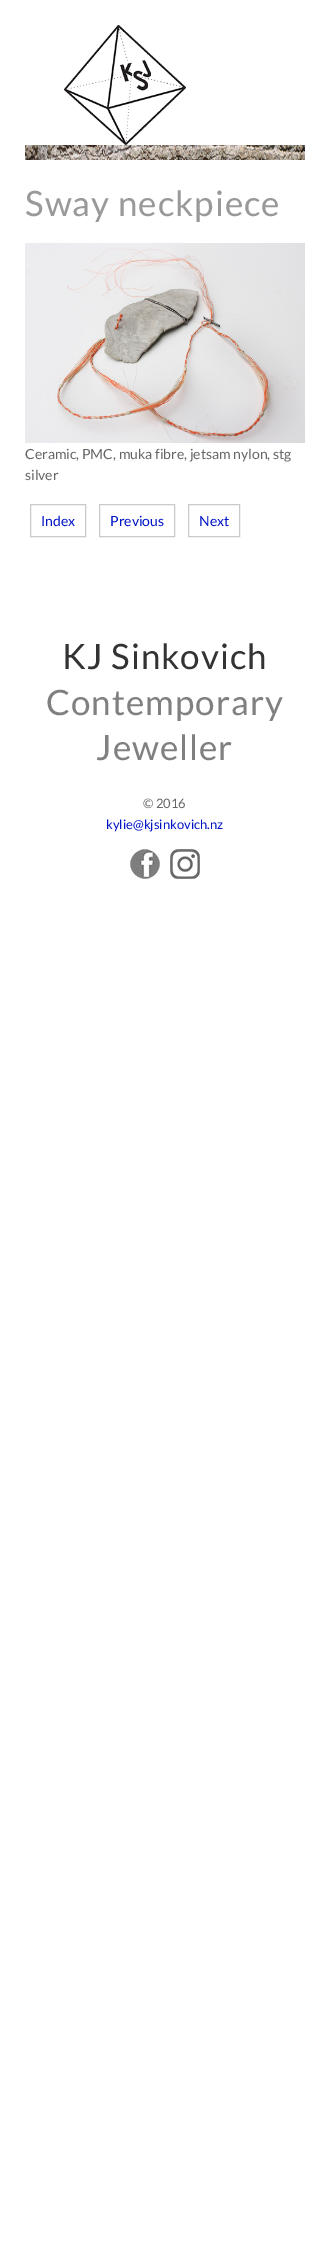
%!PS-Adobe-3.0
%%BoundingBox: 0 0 330 2267
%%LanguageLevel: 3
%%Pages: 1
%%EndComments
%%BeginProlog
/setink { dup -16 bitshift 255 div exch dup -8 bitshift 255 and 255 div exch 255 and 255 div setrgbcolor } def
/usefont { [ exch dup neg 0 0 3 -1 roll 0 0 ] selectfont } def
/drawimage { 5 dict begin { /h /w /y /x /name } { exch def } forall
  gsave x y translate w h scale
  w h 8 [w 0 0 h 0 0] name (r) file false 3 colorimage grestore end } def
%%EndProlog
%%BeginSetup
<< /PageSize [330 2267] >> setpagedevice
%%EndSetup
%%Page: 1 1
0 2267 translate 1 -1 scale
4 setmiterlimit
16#FFFFFF setink
0 0 330 2267 rectfill
(img1.raw) 64 25 122 120 drawimage
(img2.raw) 25 145 280 15 drawimage
/Lato-Regular 35 usefont
16#999999 setink
25 216 moveto 1 0 (Sway neckpiece) ashow
(img3.raw) 25 243 280 200 drawimage
/Lato-Regular 14 usefont
16#666666 setink
25 459 moveto (Ceramic, PMC, muka fibre, jetsam nylon, stg) show
25 480 moveto (silver) show
16#CACACA setink
30.5 504.5 55 32 rectstroke
16#0013C6 setink
41 526 moveto (Index) show
16#CACACA setink
99.5 504.5 75 32 rectstroke
16#0013C6 setink
110 526 moveto (Previous) show
16#CACACA setink
188.5 504.5 51 32 rectstroke
16#0013C6 setink
199 526 moveto (Next) show
/Lato-Regular 35 usefont
16#333333 setink
62 669 moveto 1 0 (KJ Sinkovich) ashow
16#808080 setink
46 715 moveto 1 0 (Contemporary) ashow
96 760 moveto 1 0 (Jeweller) ashow
/Lato-Regular 13 usefont
16#666666 setink
143 808 moveto (© 2016) show
16#0013C6 setink
106 829 moveto (kylie@kjsinkovich.nz) show
(img4.raw) 130 849 30 30 drawimage
(img5.raw) 170 849 30 30 drawimage
showpage
%%EOF
